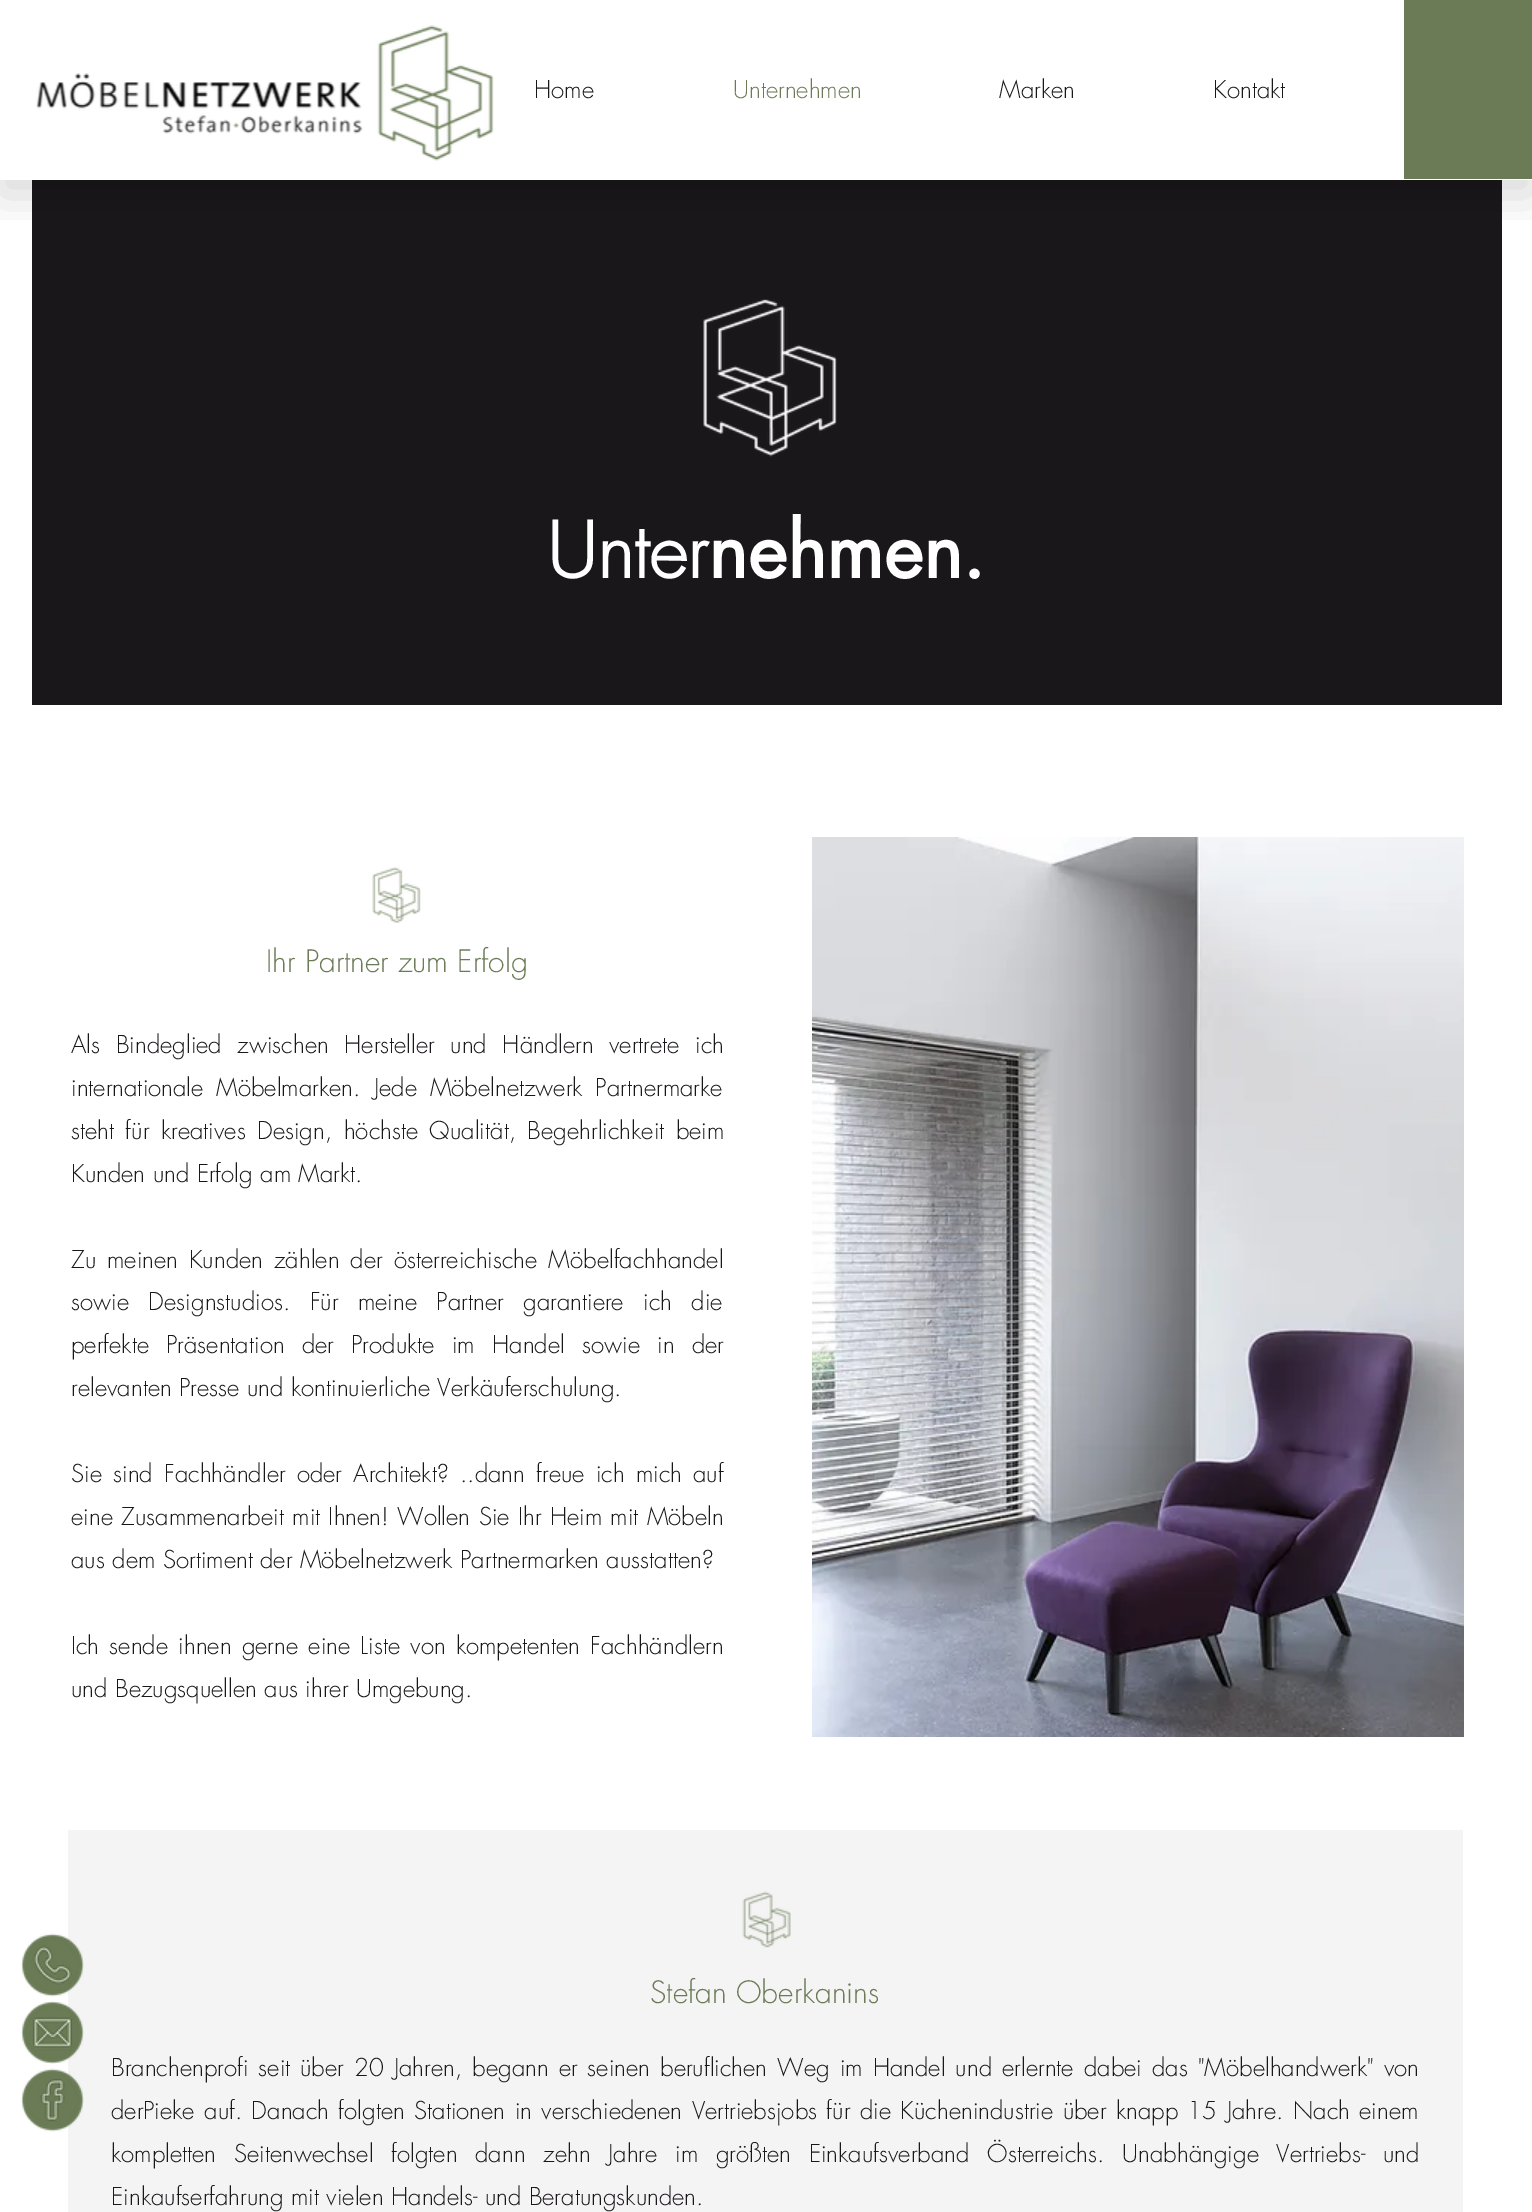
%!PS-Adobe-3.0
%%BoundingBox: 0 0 1532 2212
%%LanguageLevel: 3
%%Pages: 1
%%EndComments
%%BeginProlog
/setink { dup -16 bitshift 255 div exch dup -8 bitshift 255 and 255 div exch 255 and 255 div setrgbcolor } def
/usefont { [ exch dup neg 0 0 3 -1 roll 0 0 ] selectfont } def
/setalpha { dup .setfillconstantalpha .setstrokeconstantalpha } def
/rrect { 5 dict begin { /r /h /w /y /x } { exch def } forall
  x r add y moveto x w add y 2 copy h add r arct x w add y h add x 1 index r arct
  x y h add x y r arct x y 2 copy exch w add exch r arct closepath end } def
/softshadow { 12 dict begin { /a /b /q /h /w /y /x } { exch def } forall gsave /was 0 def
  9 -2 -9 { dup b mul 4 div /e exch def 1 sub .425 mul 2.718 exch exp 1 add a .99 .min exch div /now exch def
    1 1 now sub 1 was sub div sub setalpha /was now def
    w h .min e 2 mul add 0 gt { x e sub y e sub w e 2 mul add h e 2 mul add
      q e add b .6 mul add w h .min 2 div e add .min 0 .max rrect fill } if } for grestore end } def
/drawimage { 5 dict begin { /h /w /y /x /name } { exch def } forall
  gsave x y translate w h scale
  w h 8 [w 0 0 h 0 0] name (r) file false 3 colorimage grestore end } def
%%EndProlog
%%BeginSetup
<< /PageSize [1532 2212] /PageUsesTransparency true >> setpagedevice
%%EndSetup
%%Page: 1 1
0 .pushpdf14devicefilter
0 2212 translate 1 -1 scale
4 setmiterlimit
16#FFFFFF setink
0 0 1532 2212 rectfill
16#1A171B setink
32 180 1470 525 rectfill
gsave
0 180 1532 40 rectclip
16#000000 setink
0 15 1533 180 0 22.5 0.15 softshadow
grestore
(img1.raw) 36 25 458 136 drawimage
/futura-Light 24 usefont
534 98 moveto (Home) show
16#6A7B56 setink
733 98 moveto (Unternehmen) show
16#1A171B setink
999 98 moveto (Marken) show
1213 98 moveto (Kontakt) show
16#6A7B56 setink
1404 0 128 179 rectfill
16#F4F4F4 setink
68 1830 1395 382 rectfill
(img2.raw) 21 1933 63 64 drawimage
(img3.raw) 21 2001 63 63 drawimage
(img4.raw) 21 2068 63 64 drawimage
(img5.raw) 703 299 134 158 drawimage
/futura-Bold 75 usefont
16#FFFFFF setink
547 578 moveto (Unter) show
/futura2-Bold 75 usefont
708 578 moveto (nehmen.) show
(img6.raw) 372 867 49 56 drawimage
/futura-Light 30 usefont
16#6A7B56 setink
266 972 moveto (Ihr Partner zum Erfolg) show
/futura-Light 24 usefont
16#1A171B setink
71 1053 moveto 8 0 32 (Als Bindeglied zwischen Hersteller und Händlern vertrete ich) widthshow
71 1096 moveto 5.5 0 32 (internationale Möbelmarken. Jede Möbelnetzwerk Partnermarke) widthshow
71 1139 moveto 4 0 32 (steht für kreatives Design, höchste Qualität, Begehrlichkeit beim) widthshow
71 1182 moveto (Kunden und Erfolg am Markt.) show
71 1268 moveto 3.5 0 32 (Zu meinen Kunden zählen der österreichische Möbelfachhandel) widthshow
71 1310 moveto 12 0 32 (sowie Designstudios. Für meine Partner garantiere ich die) widthshow
71 1353 moveto 9.75 0 32 (perfekte Präsentation der Produkte im Handel sowie in der) widthshow
71 1396 moveto (relevanten Presse und kontinuierliche Verkäuferschulung.) show
71 1482 moveto 3.75 0 32 (Sie sind Fachhändler oder Architekt? ..dann freue ich mich auf) widthshow
71 1525 moveto 0.9 0 32 (eine Zusammenarbeit mit Ihnen! Wollen Sie Ihr Heim mit Möbeln) widthshow
71 1568 moveto (aus dem Sortiment der Möbelnetzwerk Partnermarken ausstatten?) show
71 1654 moveto 2.75 0 32 (Ich sende ihnen gerne eine Liste von kompetenten Fachhändlern) widthshow
71 1697 moveto (und Bezugsquellen aus ihrer Umgebung.) show
(img7.raw) 812 837 652 900 drawimage
(img8.raw) 742 1891 49 57 drawimage
/futura-Light 30 usefont
16#6A7B56 setink
650 2003 moveto (Stefan Oberkanins) show
/futura-Light 24 usefont
16#1A171B setink
111 2076 moveto 2.6 0 32 (Branchenprofi seit über 20 Jahren, begann er seinen beruflichen Weg im Handel und erlernte dabei das "Möbelhandwerk" von) widthshow
111 2119 moveto (der) show
143 2119 moveto 2 0 32 (Pieke auf. Danach folgten Stationen in verschiedenen Vertriebsjobs für die Küchenindustrie über knapp 15 Jahre. Nach einem) widthshow
111 2162 moveto 10.25 0 32 (kompletten Seitenwechsel folgten dann zehn Jahre im größten Einkaufsverband Österreichs. Unabhängige Vertriebs- und) widthshow
111 2205 moveto (Einkaufserfahrung mit vielen Handels- und Beratungskunden.) show
.poppdf14devicefilter showpage
%%EOF
